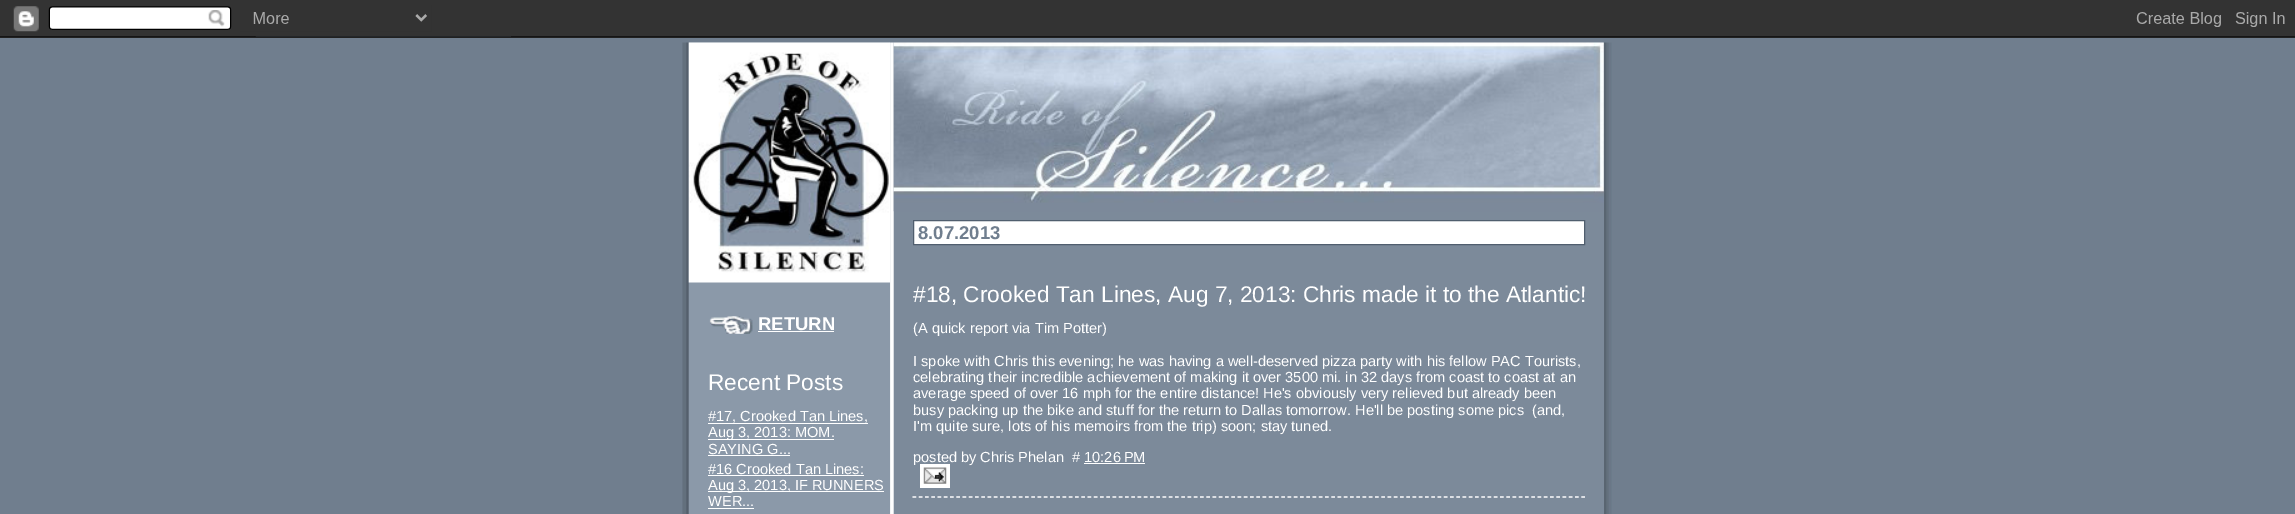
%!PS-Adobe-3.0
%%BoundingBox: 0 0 2295 514
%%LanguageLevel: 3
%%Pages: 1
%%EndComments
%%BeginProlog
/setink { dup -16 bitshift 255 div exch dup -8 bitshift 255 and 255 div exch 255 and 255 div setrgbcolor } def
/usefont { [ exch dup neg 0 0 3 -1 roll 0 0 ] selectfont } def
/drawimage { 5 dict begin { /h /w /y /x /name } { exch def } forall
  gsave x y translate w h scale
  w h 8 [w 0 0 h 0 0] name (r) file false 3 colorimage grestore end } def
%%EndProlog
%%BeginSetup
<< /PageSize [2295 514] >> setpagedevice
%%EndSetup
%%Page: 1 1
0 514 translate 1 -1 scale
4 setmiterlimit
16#707E8E setink
0 0 2295 514 rectfill
(img1.raw) 0 0 2295 38 drawimage
(img2.raw) 682 42 930 472 drawimage
16#8B99A9 setink
889 282 1 232 rectfill
(img3.raw) 688 42 202 241 drawimage
(img4.raw) 709 316 44 18 drawimage
/LiberationSans-Bold 18.5 usefont
16#FFFFFF setink
758 330 moveto (RETURN) show
758 331 76 1 rectfill
/LiberationSans-Regular 22.7 usefont
708 390 moveto (Recent Posts) show
/LiberationSans-Regular 14.6 usefont
708 421 moveto (#17, Crooked Tan Lines,) show
708 423 160 1 rectfill
708 439 126 1 rectfill
708 437 moveto (Aug 3, 2013: MOM.) show
708 454 moveto (SAYING G...) show
708 455 82 1 rectfill
708 474 moveto (#16 Crooked Tan Lines:) show
708 475 156 1 rectfill
708 491 176 1 rectfill
708 490 moveto (Aug 3, 2013, IF RUNNERS) show
708 506 moveto (WER...) show
708 508 46 1 rectfill
16#7C8A9A setink
1603 43 1 471 rectfill
(img5.raw) 893 42 711 170 drawimage
16#FFFFFF setink
913.5 220.5 moveto 1584.5 220.5 lineto 1584.5 244.5 lineto 913.5 244.5 lineto closepath gsave fill grestore
16#505E6E setink
stroke
/LiberationSans-Bold 18.5 usefont
16#707E8E setink
918 239 moveto (8.07.2013) show
/LiberationSans-Regular 22.7 usefont
16#FFFFFF setink
913 302 moveto (#18, Crooked Tan Lines, Aug 7, 2013: Chris made it to the Atlantic!) show
1.2 setlinewidth
[3.75 2.5] 0 setdash
912.5 497 moveto 1585 497 lineto stroke
/LiberationSans-Regular 14.6 usefont
[
    [(\(A quick report via Tim Potter\)) 913 333]
    [(I spoke with Chris this evening; he was having a well-deserved pizza party with his fellow PAC Tourists,) 913 366]
    [(celebrating their incredible achievement of making it over 3500 mi. in 32 days from coast to coast at an) 913 382]
    [(average speed of over 16 mph for the entire distance!) 913 398]
    [(He's obviously very relieved but already been) 1263 398]
    [(busy packing up the bike and stuff for the) 913 415]
    [(return to Dallas tomorrow. He'll be posting some pics  \(and,) 1183 415]
    [(I'm quite sure, lots of his memoirs from the trip\) soon; stay tuned.) 913 431]
] { aload pop moveto show } forall
920 464 30 24 rectfill
913 462 moveto (posted by Chris Phelan  # 10:26 PM) show
1084 463 61 1 rectfill
(img6.raw) 923 467 24 17 drawimage
showpage
%%EOF
